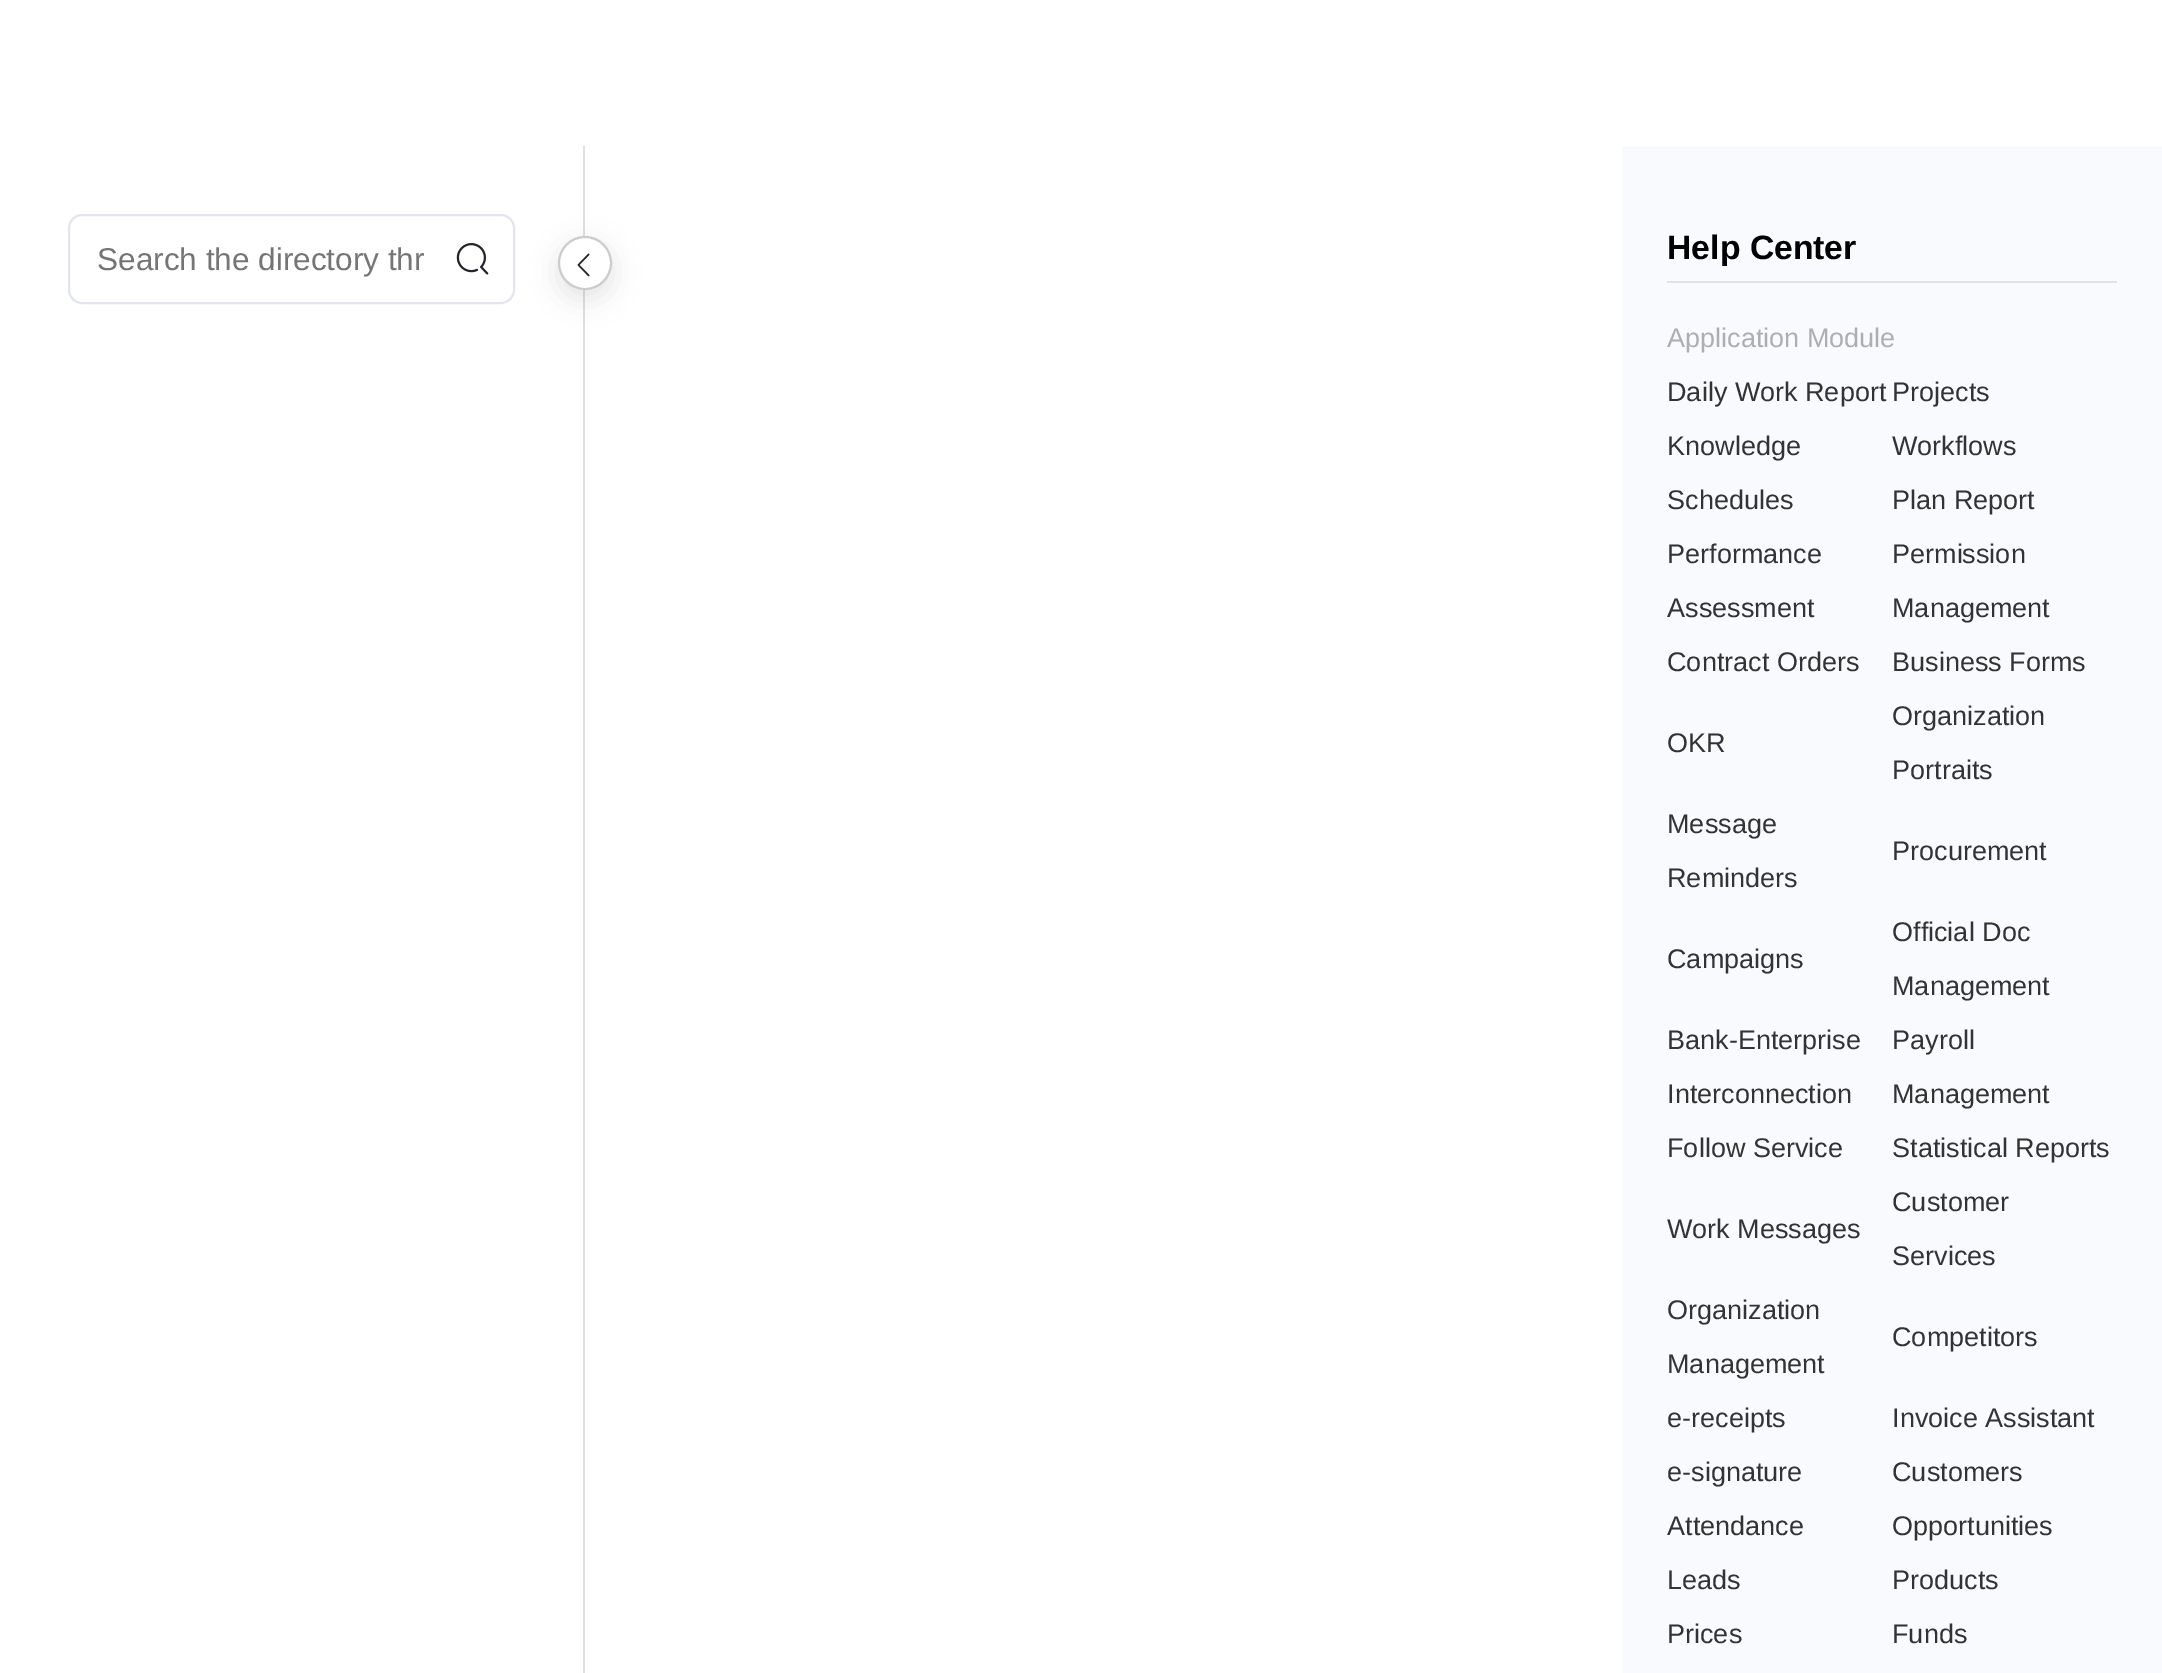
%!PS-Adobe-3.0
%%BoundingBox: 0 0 2162 1673
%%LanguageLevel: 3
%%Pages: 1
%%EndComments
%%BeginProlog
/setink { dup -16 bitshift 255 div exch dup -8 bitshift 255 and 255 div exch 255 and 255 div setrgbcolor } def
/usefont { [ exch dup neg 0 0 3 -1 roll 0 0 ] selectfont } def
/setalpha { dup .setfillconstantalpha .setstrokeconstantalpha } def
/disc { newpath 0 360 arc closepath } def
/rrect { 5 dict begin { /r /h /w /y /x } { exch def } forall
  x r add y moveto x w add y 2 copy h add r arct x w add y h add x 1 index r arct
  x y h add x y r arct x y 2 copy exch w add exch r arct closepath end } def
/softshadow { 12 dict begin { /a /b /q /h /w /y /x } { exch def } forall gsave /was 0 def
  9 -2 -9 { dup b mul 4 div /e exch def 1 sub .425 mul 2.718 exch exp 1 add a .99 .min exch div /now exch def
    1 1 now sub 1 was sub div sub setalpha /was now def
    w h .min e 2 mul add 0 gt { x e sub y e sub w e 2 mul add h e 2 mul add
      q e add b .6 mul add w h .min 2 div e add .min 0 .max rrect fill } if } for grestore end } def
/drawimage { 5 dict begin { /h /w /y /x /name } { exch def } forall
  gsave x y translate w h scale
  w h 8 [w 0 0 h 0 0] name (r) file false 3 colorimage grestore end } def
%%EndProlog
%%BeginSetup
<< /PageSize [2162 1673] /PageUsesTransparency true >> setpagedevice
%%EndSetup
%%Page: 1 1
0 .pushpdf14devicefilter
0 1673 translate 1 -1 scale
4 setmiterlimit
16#FFFFFF setink
0 0 2162 1673 rectfill
16#DEE0E3 setink
583 146 2 1527 rectfill
16#E2E6EC setink
2 setlinewidth
69 215 445 88 13 rrect stroke
/LiberationSans-Regular 31.5 usefont
16#757575 setink
97 270 moveto (Search the directory thr) show
(img1.raw) 456 243 33 32 drawimage
16#000000 setink
558 245 54 54 27 13.5 0.1 softshadow
16#FFFFFF setink
585 263 26 disc gsave fill grestore
16#CCCCCC setink
stroke
(img2.raw) 577 253 13 24 drawimage
16#F9FAFE setink
1622 146 540 1527 rectfill
16#E5E1E1 setink
1667 281 450 2 rectfill
/LiberationSans-Bold 33.75 usefont
16#000000 setink
1667 259 moveto (Help Center) show
/LiberationSans-Regular 27 usefont
16#AEAEAE setink
1667 347 moveto (Application Module) show
16#333333 setink
[
    [(Daily Work Report) 1667 401]
    [(Projects) 1892 401]
    [(Knowledge) 1667 455]
    [(Workflows) 1892 455]
    [(Schedules) 1667 509]
    [(Plan Report) 1892 509]
    [(Performance) 1667 563]
    [(Assessment) 1667 617]
    [(Permission) 1892 563]
    [(Management) 1892 617]
    [(Contract Orders) 1667 671]
    [(Business Forms) 1892 671]
    [(OKR) 1667 752]
    [(Organization) 1892 725]
    [(Portraits) 1892 779]
    [(Message) 1667 833]
    [(Reminders) 1667 887]
    [(Procurement) 1892 860]
    [(Campaigns) 1667 968]
    [(Official Doc) 1892 941]
    [(Management) 1892 995]
    [(Bank-Enterprise) 1667 1049]
    [(Interconnection) 1667 1103]
    [(Payroll) 1892 1049]
    [(Management) 1892 1103]
    [(Follow Service) 1667 1157]
    [(Statistical Reports) 1892 1157]
    [(Work Messages) 1667 1238]
    [(Customer) 1892 1211]
    [(Services) 1892 1265]
    [(Organization) 1667 1319]
    [(Management) 1667 1373]
    [(Competitors) 1892 1346]
    [(e-receipts) 1667 1427]
    [(Invoice Assistant) 1892 1427]
    [(e-signature) 1667 1481]
    [(Customers) 1892 1481]
    [(Attendance) 1667 1535]
    [(Opportunities) 1892 1535]
    [(Leads) 1667 1589]
    [(Products) 1892 1589]
    [(Prices) 1667 1643]
    [(Funds) 1892 1643]
] { aload pop moveto show } forall
.poppdf14devicefilter showpage
%%EOF
